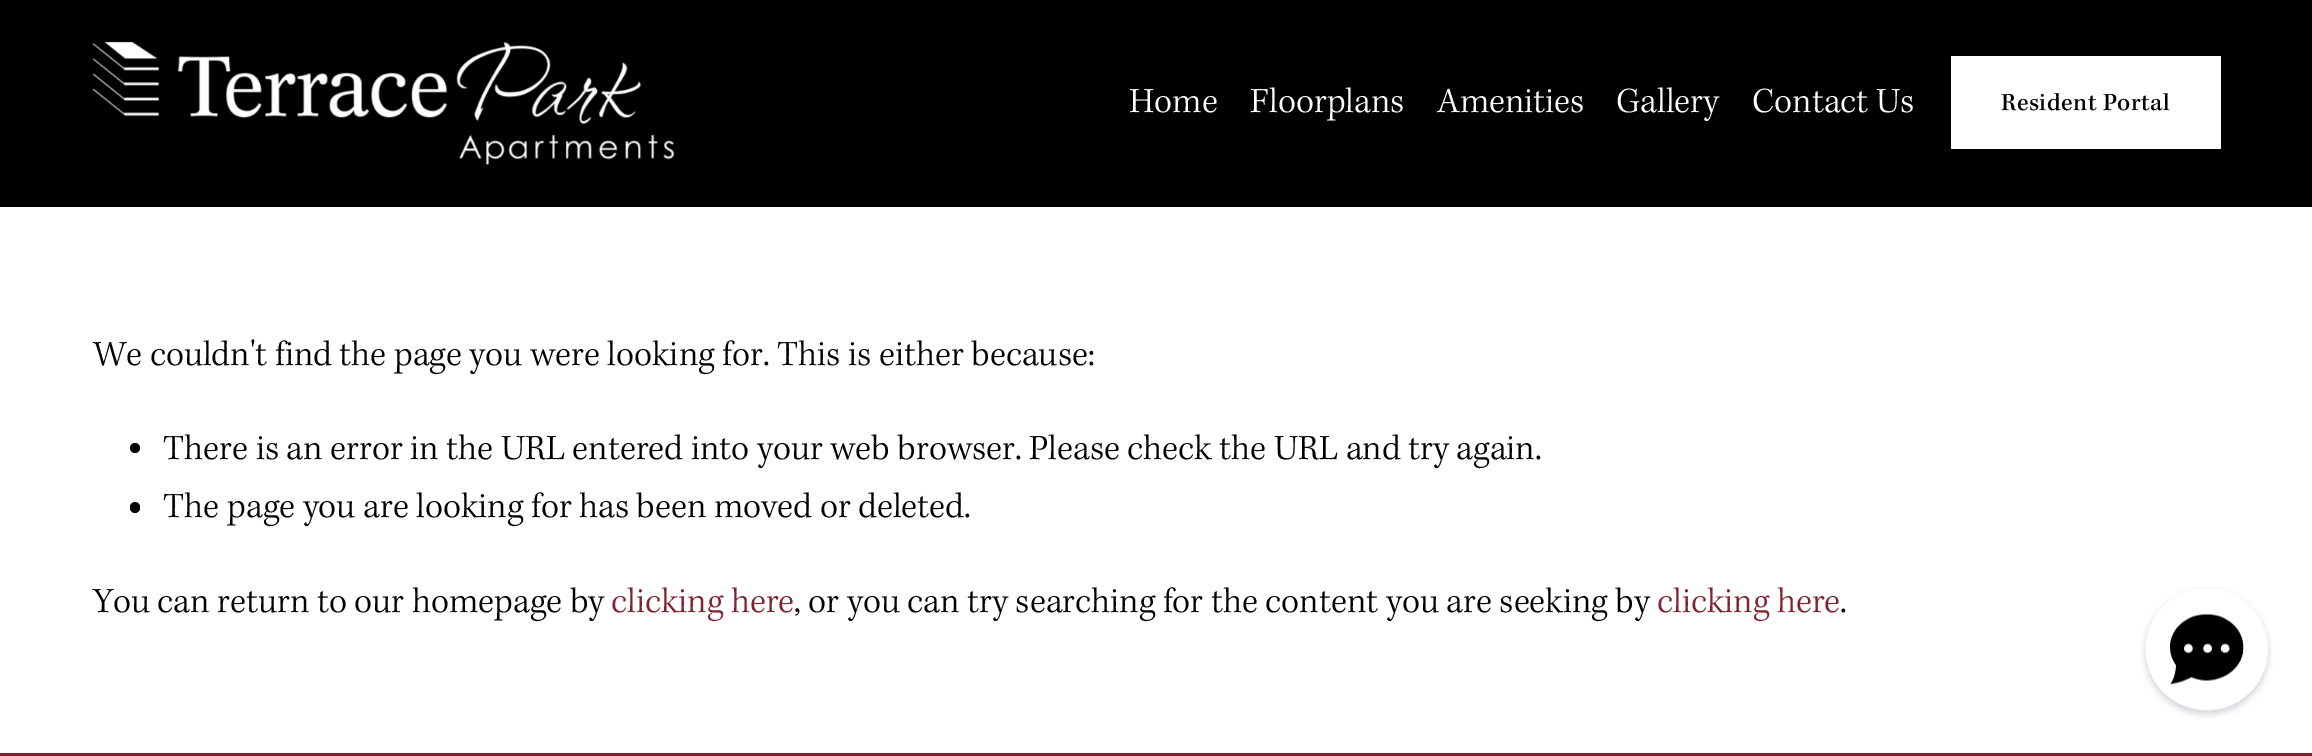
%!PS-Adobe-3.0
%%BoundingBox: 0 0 2312 756
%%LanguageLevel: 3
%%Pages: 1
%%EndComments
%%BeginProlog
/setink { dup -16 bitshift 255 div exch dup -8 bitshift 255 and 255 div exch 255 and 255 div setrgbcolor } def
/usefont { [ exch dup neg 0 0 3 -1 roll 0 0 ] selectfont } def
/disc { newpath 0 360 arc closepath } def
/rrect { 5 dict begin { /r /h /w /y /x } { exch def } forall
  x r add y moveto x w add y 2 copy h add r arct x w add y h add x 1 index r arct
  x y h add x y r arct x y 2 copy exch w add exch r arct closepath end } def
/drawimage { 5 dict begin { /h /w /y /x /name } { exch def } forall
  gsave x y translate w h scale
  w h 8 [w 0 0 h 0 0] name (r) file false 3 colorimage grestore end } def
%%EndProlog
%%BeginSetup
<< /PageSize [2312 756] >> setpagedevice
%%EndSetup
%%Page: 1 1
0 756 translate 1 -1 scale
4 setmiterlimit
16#FFFFFF setink
0 0 2312 756 rectfill
16#000000 setink
0 0 2312 207 rectfill
(img1.raw) 92 41 583 124 drawimage
/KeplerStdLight-Light 36.35 usefont
16#FFFFFF setink
[
    [(Home) 1129 112]
    [(Floorplans) 1250 112]
    [(Amenities) 1437 112]
    [(Gallery) 1616 112]
    [(Contact Us) 1752 112]
] { aload pop moveto show } forall
1951 56 270 93 rectfill
/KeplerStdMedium-Medium 25.25 usefont
16#000000 setink
2001 110 moveto 0.5 0 (Resident Portal) ashow
/KeplerStdLight-Light 36.35 usefont
93 365 moveto (We couldn't find the page you were looking for. This is either because:) show
135 448 5 disc fill
163 459 moveto (There is an error in the URL entered into your web browser. Please check the URL and try again.) show
130 502 10 11 5 rrect fill
163 517 moveto (The page you are looking for has been moved or deleted.) show
93 612 moveto (You can return to our homepage by) show
16#82222F setink
611 612 moveto (clicking here) show
16#000000 setink
794 612 moveto (, or you can try searching for the content you are seeking by) show
16#82222F setink
1657 612 moveto (clicking here) show
16#000000 setink
1840 612 moveto (.) show
16#82222F setink
0 753 2312 3 rectfill
(img2.raw) 2140 586 133 133 drawimage
showpage
%%EOF
